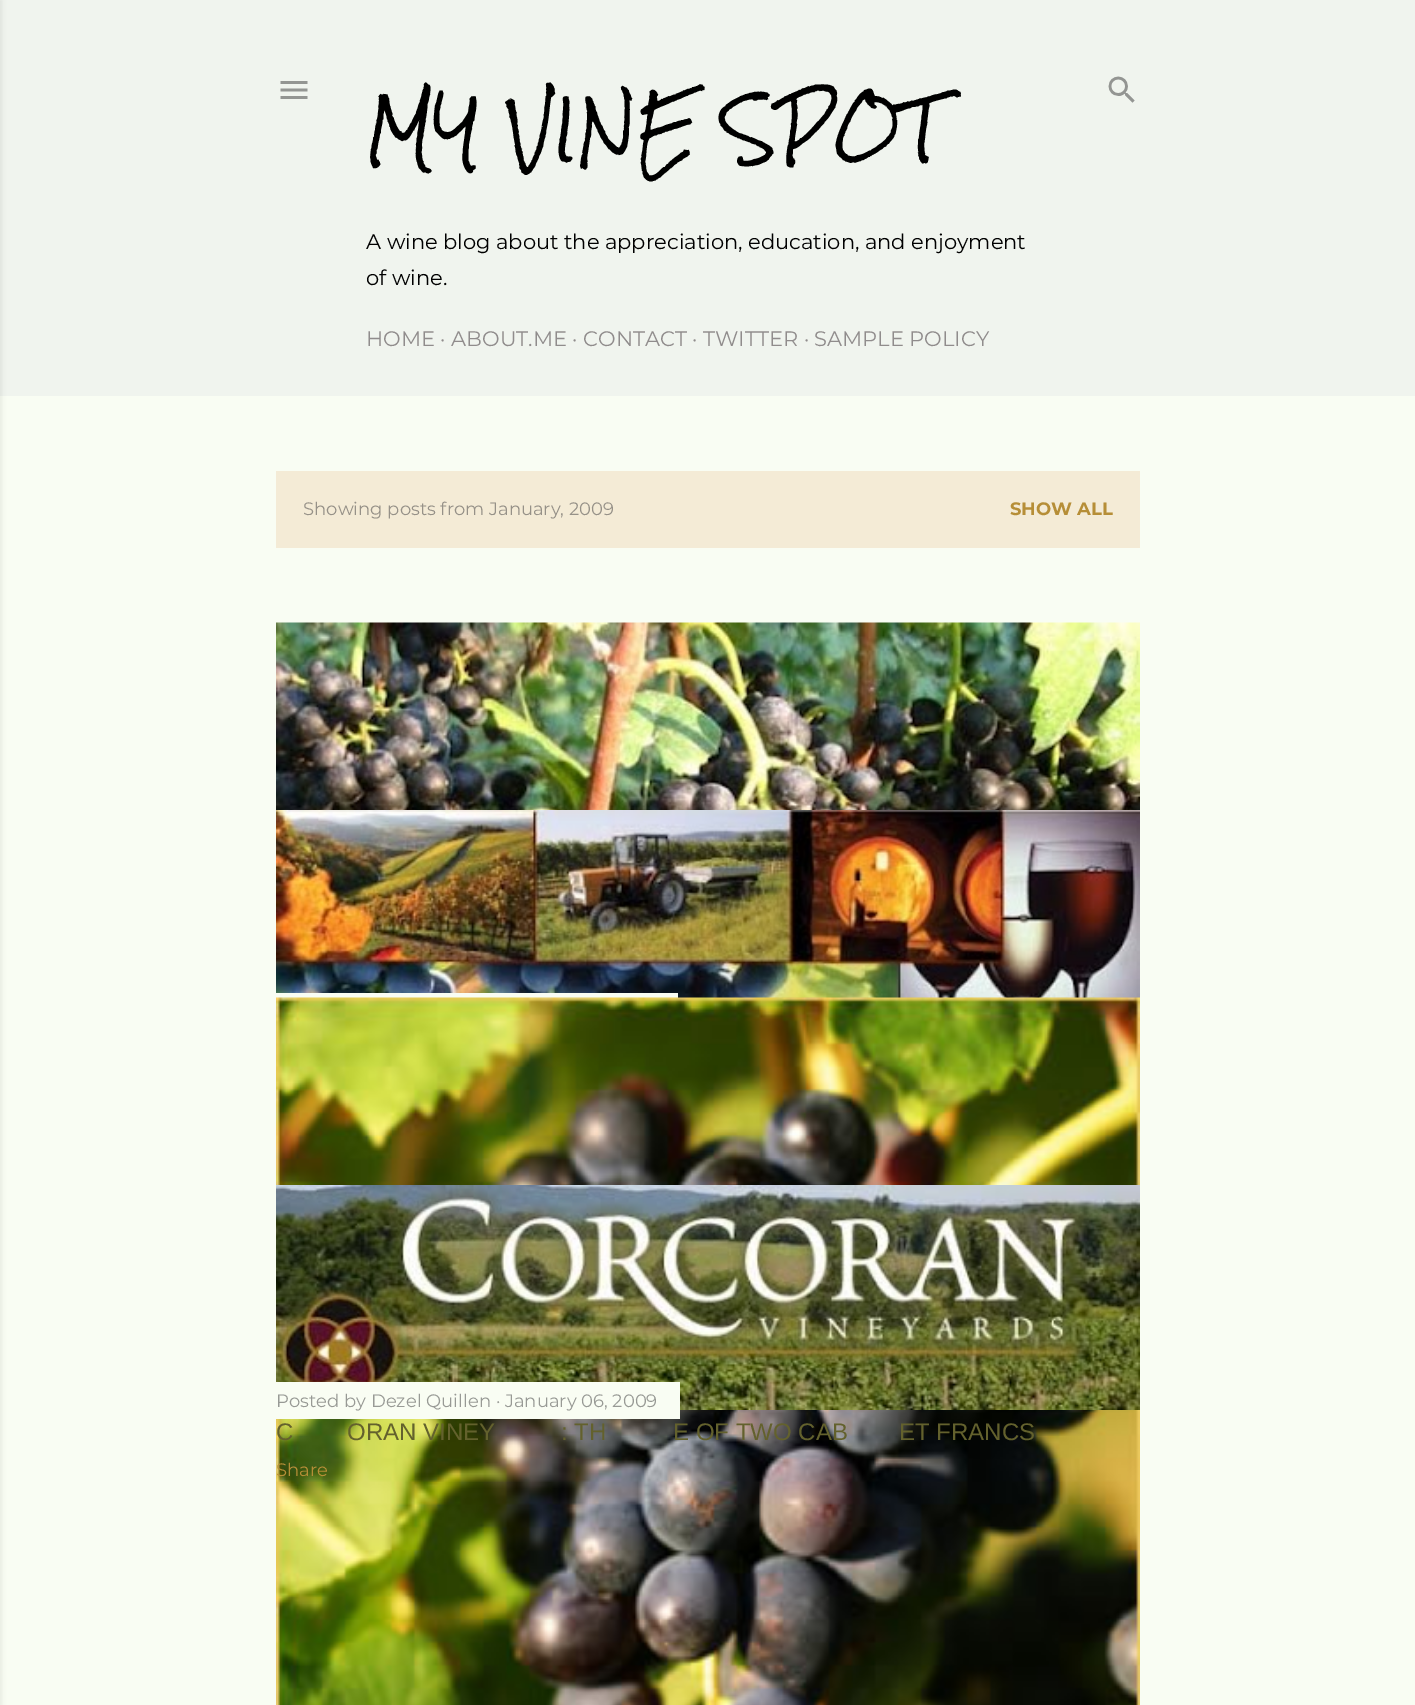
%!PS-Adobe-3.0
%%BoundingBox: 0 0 1415 1705
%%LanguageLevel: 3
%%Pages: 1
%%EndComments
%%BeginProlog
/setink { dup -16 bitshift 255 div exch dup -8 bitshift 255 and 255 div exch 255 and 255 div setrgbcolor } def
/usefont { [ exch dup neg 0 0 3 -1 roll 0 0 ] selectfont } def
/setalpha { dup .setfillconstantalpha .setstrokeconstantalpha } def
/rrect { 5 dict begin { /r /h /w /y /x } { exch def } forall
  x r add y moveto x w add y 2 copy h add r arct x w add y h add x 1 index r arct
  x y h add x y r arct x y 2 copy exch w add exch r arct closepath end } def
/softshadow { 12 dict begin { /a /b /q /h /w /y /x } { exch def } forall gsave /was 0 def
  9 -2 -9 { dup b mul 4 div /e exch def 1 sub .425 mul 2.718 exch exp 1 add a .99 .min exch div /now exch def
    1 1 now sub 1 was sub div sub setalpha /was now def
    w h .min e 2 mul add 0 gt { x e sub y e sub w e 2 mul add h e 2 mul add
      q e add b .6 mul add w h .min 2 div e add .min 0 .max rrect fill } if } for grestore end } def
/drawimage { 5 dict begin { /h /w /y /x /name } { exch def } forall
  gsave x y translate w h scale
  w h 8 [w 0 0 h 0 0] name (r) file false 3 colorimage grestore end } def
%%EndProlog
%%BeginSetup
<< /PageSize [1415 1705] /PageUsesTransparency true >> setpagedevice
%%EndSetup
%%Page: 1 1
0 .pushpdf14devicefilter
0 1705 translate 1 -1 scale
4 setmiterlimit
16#F9FDF3 setink
0 0 1415 1705 rectfill
16#F0F4EE setink
0 0 1415 396 rectfill
16#454545 setink
-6 0 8 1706 0 2 0.1 softshadow
(img1.raw) 280 81 28 18 drawimage
/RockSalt-Regular 63 usefont
16#000000 setink
366 155 moveto (MY VINE SPOT) show
/Montserrat-Regular 21 usefont
366 249 moveto (A wine blog about the appreciation, education, and enjoyment) show
366 285 moveto (of wine.) show
16#908C8C setink
366 346 moveto (HOME · ABOUT.ME · CONTACT · TWITTER · SAMPLE POLICY) show
(img2.raw) 1108 76 27 27 drawimage
16#F4EBD6 setink
276 471 864 77 rectfill
/Montserrat-Regular 18 usefont
16#969188 setink
303 515 moveto (Showing posts from January, 2009) show
/Montserrat-Bold 18 usefont
16#B68E37 setink
1010 515 moveto (SHOW ALL) show
(img3.raw) 276 622 864 188 drawimage
(img4.raw) 276 810 864 188 drawimage
16#F9FDF3 setink
276 993 402 5 rectfill
(img5.raw) 276 997 864 708 drawimage
(img6.raw) 276 1185 864 225 drawimage
276 1382 404 37 rectfill
/Montserrat-Regular 18 usefont
16#989A95 setink
276 1407 moveto (Posted by Dezel Quillen · January 06, 2009) show
/LiberationSans-Regular 24 usefont
16#63612D setink
[
    [(C) 276 1440]
    [(ORAN VINEY) 347 1440]
    [(: TH) 561 1440]
    [(E OF TWO CAB) 673 1440]
    [(ET FRANCS) 899 1440]
] { aload pop moveto show } forall
/Montserrat-Regular 18 usefont
16#B68E37 setink
276 1476 moveto (Share) show
.poppdf14devicefilter showpage
%%EOF
